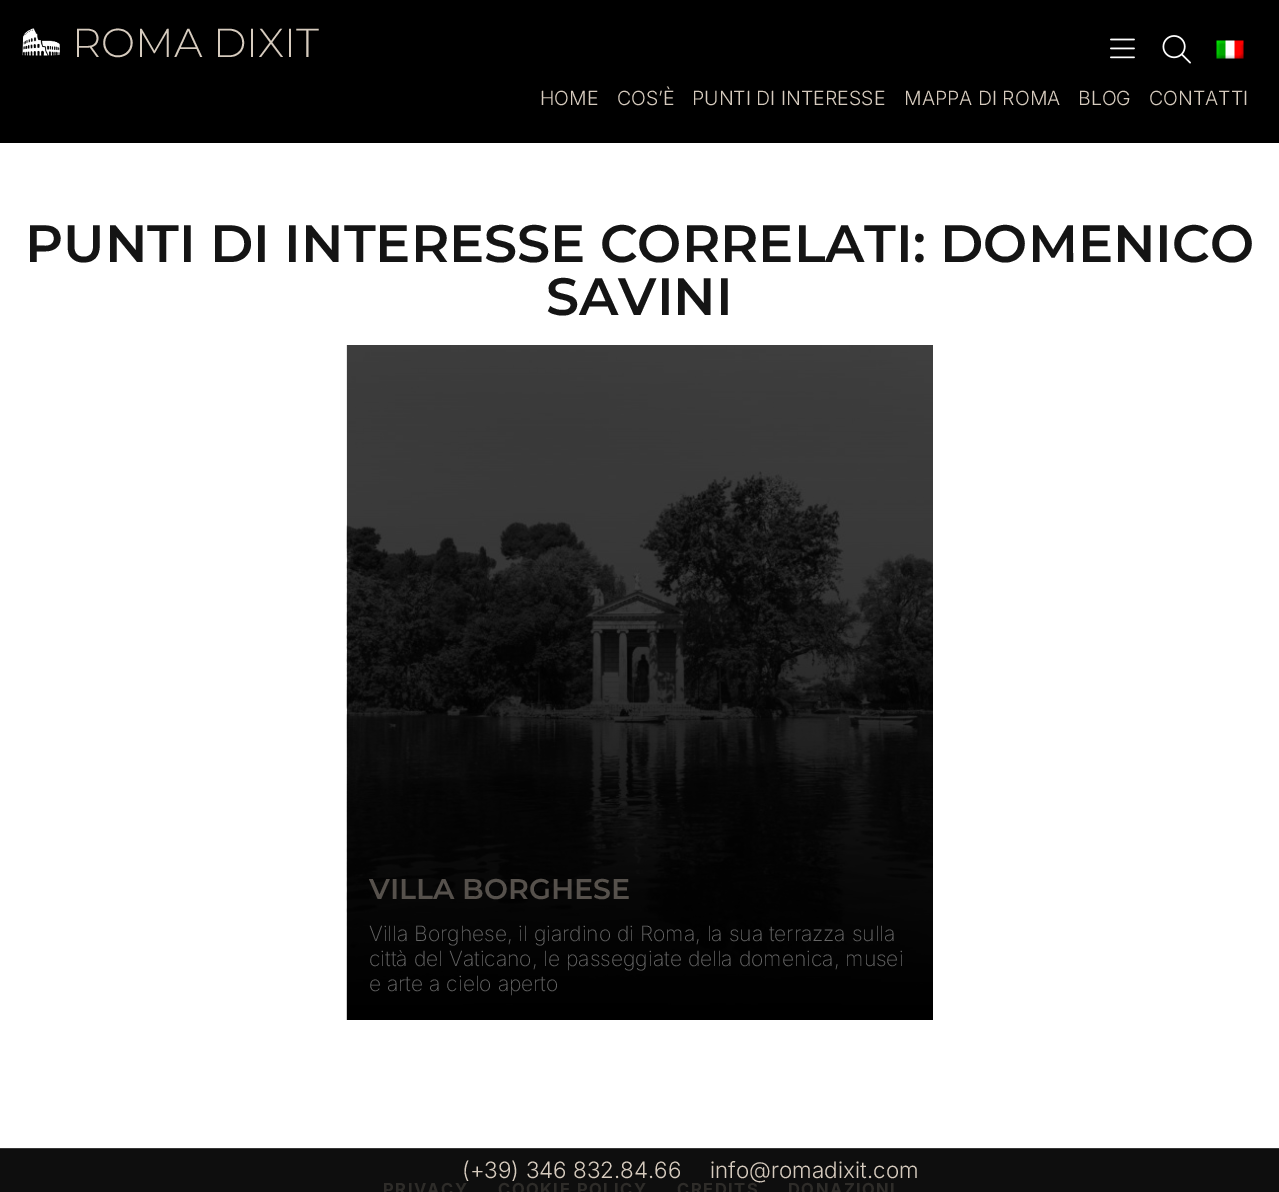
%!PS-Adobe-3.0
%%BoundingBox: 0 0 1279 1192
%%LanguageLevel: 3
%%Pages: 1
%%EndComments
%%BeginProlog
/setink { dup -16 bitshift 255 div exch dup -8 bitshift 255 and 255 div exch 255 and 255 div setrgbcolor } def
/usefont { [ exch dup neg 0 0 3 -1 roll 0 0 ] selectfont } def
/drawimage { 5 dict begin { /h /w /y /x /name } { exch def } forall
  gsave x y translate w h scale
  w h 8 [w 0 0 h 0 0] name (r) file false 3 colorimage grestore end } def
%%EndProlog
%%BeginSetup
<< /PageSize [1279 1192] >> setpagedevice
%%EndSetup
%%Page: 1 1
0 1192 translate 1 -1 scale
4 setmiterlimit
16#FFFFFF setink
0 0 1279 1192 rectfill
16#000000 setink
0 0 1279 143 rectfill
(img1.raw) 22 28 38 28 drawimage
/Montserrat-Light 40.5 usefont
16#D6CBBE setink
72 57 moveto (ROMA DIXIT) show
(img2.raw) 1110 38 25 21 drawimage
(img3.raw) 1162 35 29 29 drawimage
(img4.raw) 1216 40 28 19 drawimage
/Inter-Light 19.5 usefont
[
    [(HOME) 540 105]
    [(COS’È) 617 105]
    [(PUNTI DI INTERESSE) 692 105]
    [(MAPPA DI ROMA) 904 105]
    [(BLOG) 1078 105]
    [(CONTATTI) 1149 105]
] { aload pop moveto show } forall
/Montserrat-SemiBold 52.5 usefont
16#141414 setink
25 262 moveto (PUNTI DI INTERESSE CORRELATI: DOMENICO) show
546 315 moveto (SAVINI) show
(img5.raw) 346 345 587 675 drawimage
/Montserrat-SemiBold 28.5 usefont
16#56514C setink
369 899 moveto (VILLA BORGHESE) show
/Inter-ExtraLight 21 usefont
16#666666 setink
[
    [(Villa Borghese, il giardino di Roma, la sua terrazza sulla) 369 941]
    [(città del Vaticano, le passeggiate della domenica, musei) 369 966]
    [(e arte a cielo aperto) 369 991]
] { aload pop moveto show } forall
16#0E0E0E setink
0 1149 1279 43 rectfill
/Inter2-Light 22.5 usefont
16#D6CBBE setink
462 1178 moveto (\(+39\) 346 832.84.66) show
710 1178 moveto (info@romadixit.com) show
16#363636 setink
0 1148 1279 1 rectfill
/Inter-Bold 16.5 usefont
16#2E2C29 setink
383 1195 moveto 1.5 0 (PRIVACY) ashow
498 1195 moveto 1.5 0 (COOKIE POLICY) ashow
677 1195 moveto 1.5 0 (CREDITS) ashow
788 1195 moveto 1.5 0 (DONAZIONI) ashow
showpage
%%EOF
